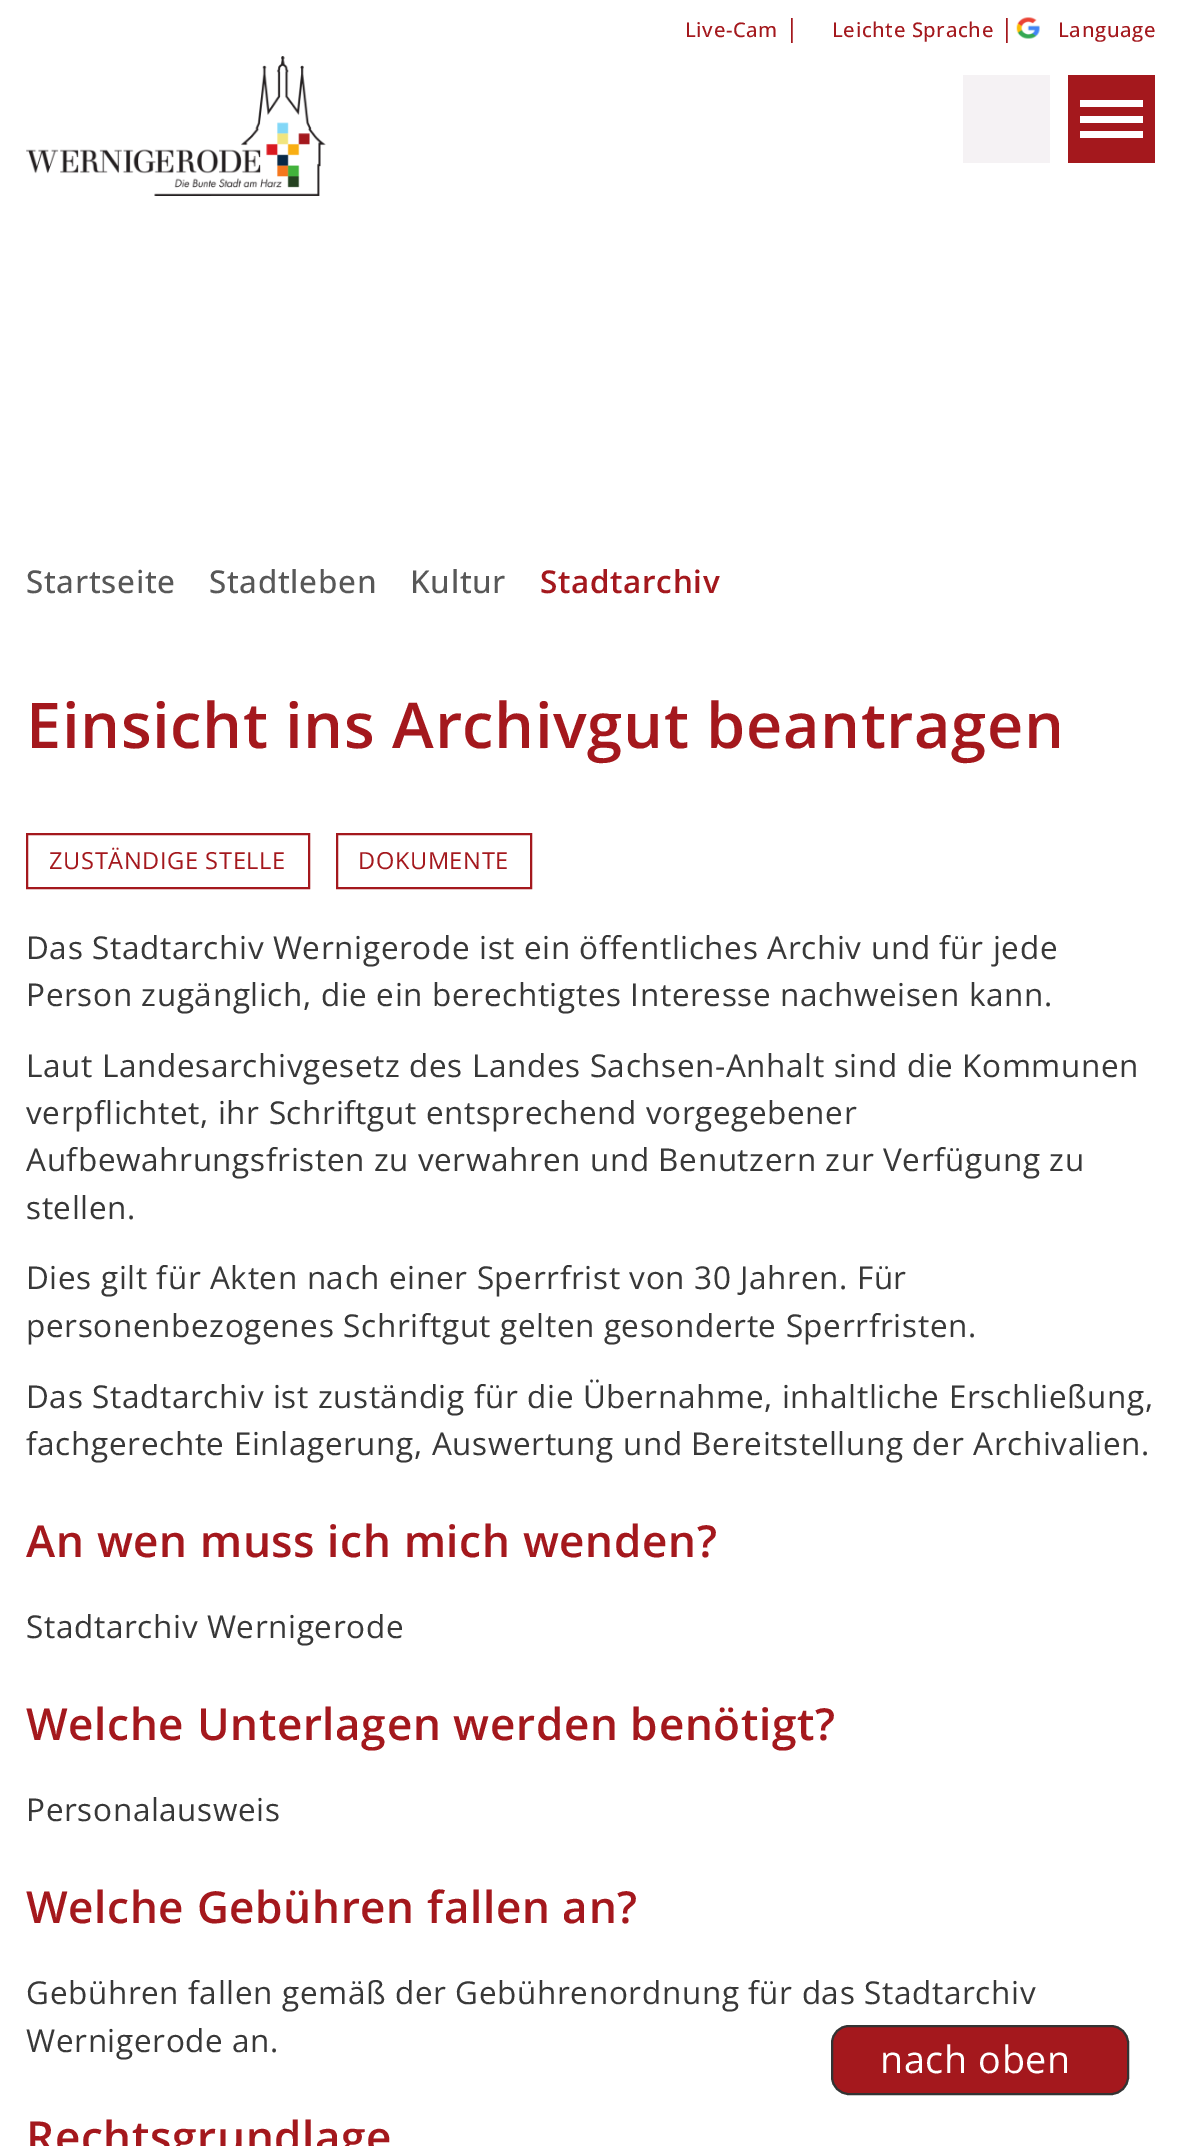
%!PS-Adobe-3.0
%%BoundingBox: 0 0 1180 2146
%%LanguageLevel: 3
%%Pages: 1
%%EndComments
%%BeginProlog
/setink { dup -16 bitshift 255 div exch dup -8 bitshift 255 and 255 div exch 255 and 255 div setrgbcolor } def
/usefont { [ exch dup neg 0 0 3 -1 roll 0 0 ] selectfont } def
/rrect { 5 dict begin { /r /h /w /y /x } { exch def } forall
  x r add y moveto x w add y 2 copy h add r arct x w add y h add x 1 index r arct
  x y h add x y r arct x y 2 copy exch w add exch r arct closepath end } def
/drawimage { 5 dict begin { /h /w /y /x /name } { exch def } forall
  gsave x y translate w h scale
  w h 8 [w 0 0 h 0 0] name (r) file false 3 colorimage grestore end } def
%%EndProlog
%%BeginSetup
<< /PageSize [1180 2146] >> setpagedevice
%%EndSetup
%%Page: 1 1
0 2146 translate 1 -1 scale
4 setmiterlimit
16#FFFFFF setink
0 0 1180 2146 rectfill
/OpenSans-Medium 20.25 usefont
16#A4181D setink
685 37 moveto 0.63 0 (Live-Cam) ashow
/OpenSans-Regular 25 usefont
785 37 moveto 0.63 0 (|) ashow
/OpenSans-Medium 20.25 usefont
832 37 moveto 0.63 0 (Leichte Sprache) ashow
/OpenSans-Regular 25 usefont
1000 37 moveto 0.63 0 (|) ashow
(img1.raw) 1016 17 24 22 drawimage
/OpenSans-Medium 20.25 usefont
1058 37 moveto 0.63 0 (Language) ashow
(img2.raw) 26 56 300 140 drawimage
[
    [963 75 87 88 16#F5F2F4]
    [1068 75 87 88 16#A4181D]
    [1080 100 63 7 16#FFFFFF]
    [1080 116 63 7 16#FFFFFF]
    [1080 131 63 7 16#FFFFFF]
] { aload pop setink rectfill } forall
/OpenSans-Medium 31.5 usefont
16#585858 setink
26 593 moveto 0.63 0 (Startseite) ashow
209 593 moveto 0.63 0 (Stadtleben) ashow
410 593 moveto 0.63 0 (Kultur) ashow
/OpenSans-SemiBold 31.5 usefont
16#A4181D setink
540 593 moveto 0.63 0 (Stadtarchiv) ashow
/OpenSans-SemiBold 63 usefont
26 748 moveto 0.63 0 (Einsicht ins Archivgut beantragen) ashow
2 setlinewidth
27 834 282 54 rectstroke
/OpenSans-Regular 23.6 usefont
49 869 moveto 0.63 0 (ZUSTÄNDIGE STELLE) ashow
337 834 194 54 rectstroke
358 869 moveto 0.63 0 (DOKUMENTE) ashow
/OpenSans-Regular 31.5 usefont
16#383838 setink
26 959 moveto 0.63 0 (Das Stadtarchiv Wernigerode ist ein öffentliches Archiv und für jede) ashow
26 1006 moveto 0.63 0 (Person zugänglich, die ein berechtigtes Interesse nachweisen kann.) ashow
26 1077 moveto 0.63 0 (Laut Landesarchivgesetz des Landes Sachsen-Anhalt sind die Kommunen) ashow
26 1124 moveto 0.63 0 (verpflichtet, ihr Schriftgut entsprechend vorgegebener) ashow
26 1171 moveto 0.63 0 (Aufbewahrungsfristen zu verwahren und Benutzern zur Verfügung zu) ashow
26 1219 moveto 0.63 0 (stellen.) ashow
26 1289 moveto 0.63 0 (Dies gilt für Akten nach einer Sperrfrist von 30 Jahren. Für) ashow
26 1337 moveto 0.63 0 (personenbezogenes Schriftgut gelten gesonderte Sperrfristen.) ashow
26 1408 moveto 0.63 0 (Das Stadtarchiv ist zuständig für die Übernahme, inhaltliche Erschließung,) ashow
26 1455 moveto 0.63 0 (fachgerechte Einlagerung, Auswertung und Bereitstellung der Archivalien.) ashow
/OpenSans-SemiBold 44.1 usefont
16#A4181D setink
26 1557 moveto 0.63 0 (An wen muss ich mich wenden?) ashow
/OpenSans-Regular 31.5 usefont
16#383838 setink
26 1638 moveto 0.63 0 (Stadtarchiv Wernigerode) ashow
/OpenSans-SemiBold 44.1 usefont
16#A4181D setink
26 1740 moveto 0.63 0 (Welche Unterlagen werden benötigt?) ashow
/OpenSans-Regular 31.5 usefont
16#383838 setink
26 1821 moveto 0.63 0 (Personalausweis) ashow
/OpenSans-SemiBold 44.1 usefont
16#A4181D setink
26 1923 moveto 0.63 0 (Welche Gebühren fallen an?) ashow
/OpenSans-Regular 31.5 usefont
16#383838 setink
26 2004 moveto 0.63 0 (Gebühren fallen gemäß der Gebührenordnung für das Stadtarchiv) ashow
26 2052 moveto 0.63 0 (Wernigerode an.) ashow
/OpenSans-SemiBold 44.1 usefont
16#A4181D setink
26 2153 moveto 0.63 0 (Rechtsgrundlage) ashow
832 2026 296 68 17 rrect gsave fill grestore
16#333333 setink
stroke
/OpenSans-Regular 37.75 usefont
16#FFFFFF setink
880 2073 moveto 0.63 0 (nach oben) ashow
showpage
%%EOF
